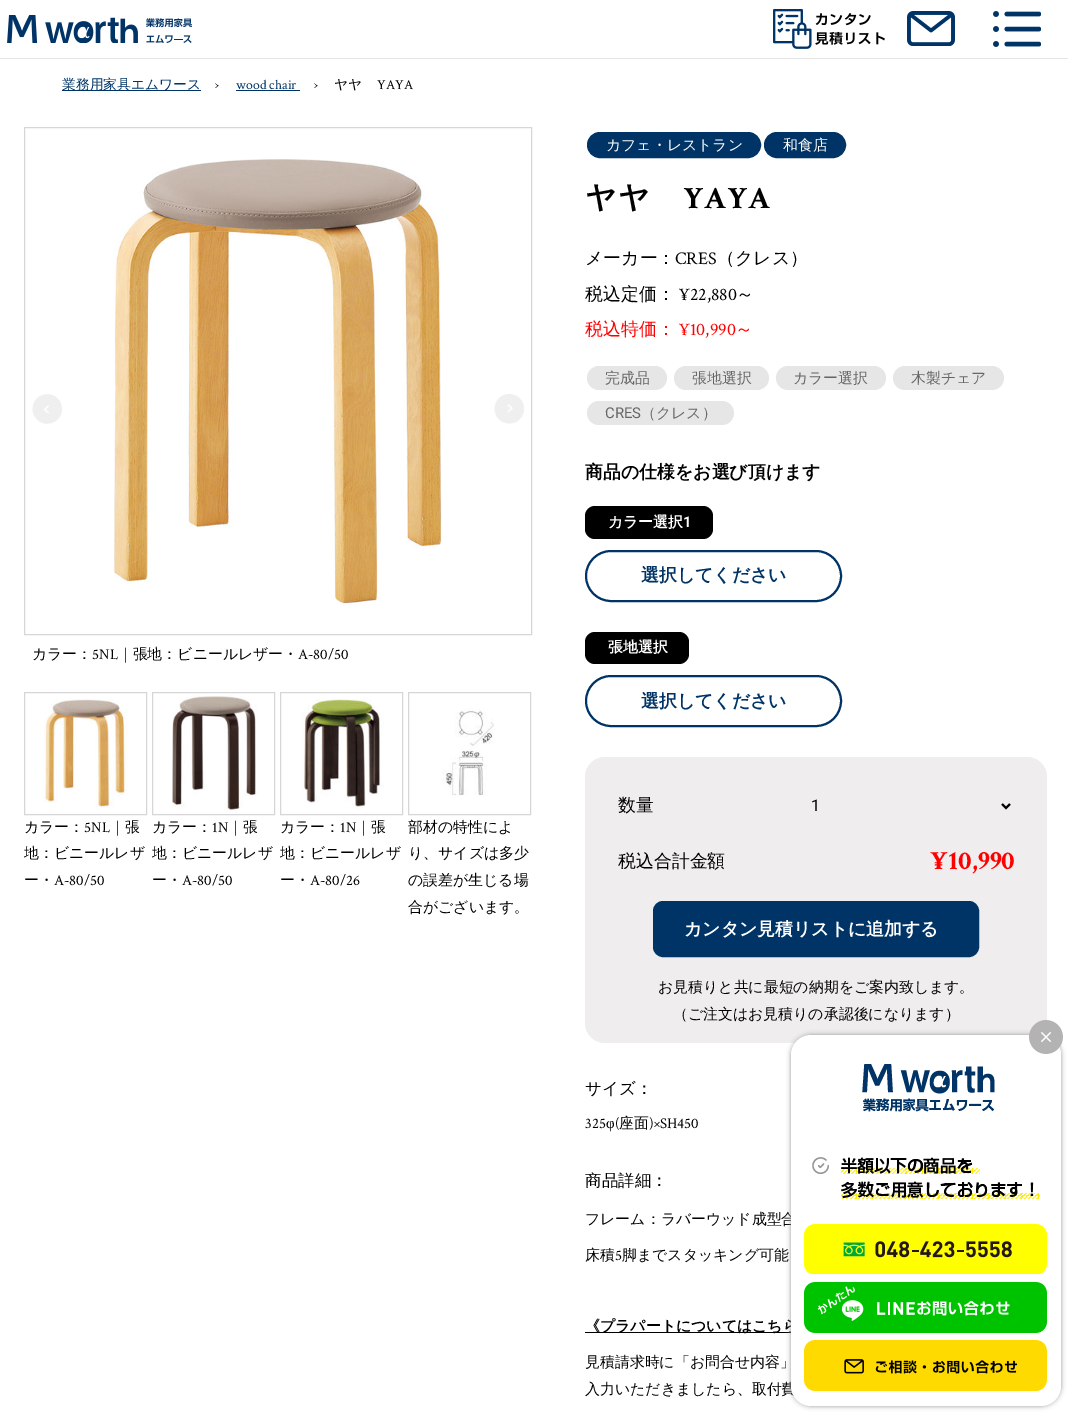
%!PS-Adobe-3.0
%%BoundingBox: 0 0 1068 1413
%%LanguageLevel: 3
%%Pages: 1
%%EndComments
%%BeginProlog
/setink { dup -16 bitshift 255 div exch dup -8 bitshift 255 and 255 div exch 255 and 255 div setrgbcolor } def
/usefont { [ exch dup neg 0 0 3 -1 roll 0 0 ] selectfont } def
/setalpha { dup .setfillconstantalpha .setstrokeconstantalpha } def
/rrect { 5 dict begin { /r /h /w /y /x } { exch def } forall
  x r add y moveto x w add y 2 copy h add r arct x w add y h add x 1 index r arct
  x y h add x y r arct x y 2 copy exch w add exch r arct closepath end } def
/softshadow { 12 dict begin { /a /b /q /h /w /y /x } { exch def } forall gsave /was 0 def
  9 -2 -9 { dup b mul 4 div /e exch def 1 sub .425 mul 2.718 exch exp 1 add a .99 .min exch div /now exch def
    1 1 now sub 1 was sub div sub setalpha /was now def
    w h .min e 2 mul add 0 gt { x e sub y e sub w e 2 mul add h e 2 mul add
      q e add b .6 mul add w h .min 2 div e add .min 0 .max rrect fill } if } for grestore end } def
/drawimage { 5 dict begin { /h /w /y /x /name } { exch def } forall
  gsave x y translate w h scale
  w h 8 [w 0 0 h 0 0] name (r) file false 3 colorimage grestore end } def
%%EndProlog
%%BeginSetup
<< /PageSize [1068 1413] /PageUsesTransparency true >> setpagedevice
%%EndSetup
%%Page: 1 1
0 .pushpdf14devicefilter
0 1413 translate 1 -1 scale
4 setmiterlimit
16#FFFFFF setink
0 0 1068 1413 rectfill
(img1.raw) 7 15 185 28 drawimage
(img2.raw) 773 9 112 40 drawimage
(img3.raw) 907 11 48 35 drawimage
(img4.raw) 993 11 48 36 drawimage
16#E6E6E6 setink
0 58 1068 1 rectfill
16#003366 setink
62 90 139 1 rectfill
/WenQuanYiZenHei-Medium 13.75 usefont
62 89 moveto (業務用家具エムワース) show
/CrimsonText-Regular 13.75 usefont
16#000000 setink
215 89 moveto (›) show
16#003366 setink
236 89 moveto (wood chair) show
236 90 64 1 rectfill
16#000000 setink
314 89 moveto (›) show
/WenQuanYiZenHei-Medium 13.75 usefont
334 89 moveto (ヤヤ) show
/CrimsonText-Regular 13.75 usefont
377 89 moveto (YAYA) show
16#D6D6D6 setink
24.5 127.5 507 507 rectstroke
(img5.raw) 32 394 30 30 drawimage
(img6.raw) 494 394 30 30 drawimage
(img7.raw) 114 159 328 445 drawimage
/WenQuanYiZenHei-Medium 14.9 usefont
16#000000 setink
32 659 moveto (カラー：) show
/CrimsonText-Regular 14.9 usefont
92 659 moveto (5NL) show
/WenQuanYiZenHei-Medium 14.9 usefont
118 659 moveto (｜張地：ビニールレザー・) show
/CrimsonText-Regular 14.9 usefont
298 659 moveto (A-80/50) show
16#D6D6D6 setink
24.5 692.5 122 122 rectstroke
(img8.raw) 44 699 84 109 drawimage
/WenQuanYiZenHei-Medium 14.9 usefont
16#000000 setink
24 832 moveto (カラー：) show
/CrimsonText-Regular 14.9 usefont
84 832 moveto (5NL) show
/WenQuanYiZenHei-Medium 14.9 usefont
[
    [(｜張) 110 832]
    [(地：ビニールレザ) 24 858]
    [(ー・) 24 885]
] { aload pop moveto show } forall
/CrimsonText-Regular 14.9 usefont
54 885 moveto (A-80/50) show
16#D6D6D6 setink
152.5 692.5 122 122 rectstroke
(img9.raw) 172 695 85 118 drawimage
/WenQuanYiZenHei-Medium 14.9 usefont
16#000000 setink
152 832 moveto (カラー：) show
/CrimsonText-Regular 14.9 usefont
212 832 moveto (1N) show
/WenQuanYiZenHei-Medium 14.9 usefont
[
    [(｜張) 228 832]
    [(地：ビニールレザ) 152 858]
    [(ー・) 152 885]
] { aload pop moveto show } forall
/CrimsonText-Regular 14.9 usefont
182 885 moveto (A-80/50) show
16#D6D6D6 setink
280.5 692.5 122 122 rectstroke
(img10.raw) 301 699 83 110 drawimage
/WenQuanYiZenHei-Medium 14.9 usefont
16#000000 setink
280 832 moveto (カラー：) show
/CrimsonText-Regular 14.9 usefont
340 832 moveto (1N) show
/WenQuanYiZenHei-Medium 14.9 usefont
[
    [(｜張) 356 832]
    [(地：ビニールレザ) 280 858]
    [(ー・) 280 885]
] { aload pop moveto show } forall
/CrimsonText-Regular 14.9 usefont
310 885 moveto (A-80/26) show
16#D6D6D6 setink
408.5 692.5 122 122 rectstroke
(img11.raw) 442 708 53 88 drawimage
/WenQuanYiZenHei-Medium 14.9 usefont
16#000000 setink
[
    [(部材の特性によ) 408 832]
    [(り、サイズは多少) 408 858]
    [(の誤差が生じる場) 408 885]
    [(合がございます。) 408 912]
] { aload pop moveto show } forall
16#003366 setink
587.5 132.5 173 25 12.5 rrect gsave fill grestore
stroke
16#FFFFFF setink
606 150 moveto (カフェ・レストラン) show
16#003366 setink
764.5 132.5 81 25 12.5 rrect gsave fill grestore
stroke
16#FFFFFF setink
783 150 moveto (和食店) show
/WenQuanYiZenHei-Bold 31 usefont
16#000000 setink
585 208 moveto 1 0 (ヤヤ) ashow
/CrimsonText-Bold 31 usefont
683 208 moveto 1 0 (YAYA) ashow
/WenQuanYiZenHei-Medium 17.9 usefont
585 264 moveto (メーカー：) show
/CrimsonText-Regular 17.9 usefont
675 264 moveto (CRES) show
/WenQuanYiZenHei-Medium 17.9 usefont
717 264 moveto (（クレス）) show
585 300 moveto (税込定価：) show
/CrimsonText-Regular 17.9 usefont
679 300 moveto (¥22,880) show
/WenQuanYiZenHei-Medium 17.9 usefont
736 300 moveto (～) show
16#FF0000 setink
585 335 moveto (税込特価：) show
/CrimsonText-Regular 17.9 usefont
679 335 moveto (¥10,990) show
/WenQuanYiZenHei-Medium 17.9 usefont
735 335 moveto (～) show
16#E6E6E6 setink
587 366 80 24 12 rrect fill
/WenQuanYiZenHei-Medium 14.9 usefont
16#666666 setink
605 383 moveto (完成品) show
16#E6E6E6 setink
674 366 95 24 12 rrect fill
16#666666 setink
692 383 moveto (張地選択) show
16#E6E6E6 setink
776 366 110 24 12 rrect fill
16#666666 setink
793 383 moveto (カラー選択) show
16#E6E6E6 setink
893 366 111 24 12 rrect fill
16#666666 setink
911 383 moveto (木製チェア) show
16#E6E6E6 setink
587 401 147 24 12 rrect fill
/Roboto-Regular 14.9 usefont
16#666666 setink
605 418 moveto (CRES) show
/WenQuanYiZenHei-Medium 14.9 usefont
641 418 moveto (（クレス）) show
/WenQuanYiZenHei-Bold 17.9 usefont
16#000000 setink
585 478 moveto (商品の仕様をお選び頂けます) show
585 506 128 33 10 rrect fill
/WenQuanYiZenHei-Bold 14.9 usefont
16#FFFFFF setink
608 527 moveto (カラー選択) show
/Roboto-Bold 14.9 usefont
683 527 moveto (1) show
16#003366 setink
2 setlinewidth
586 551 255 50 25 rrect stroke
/WenQuanYiZenHei-Bold 17.9 usefont
641 581 moveto (選択してください) show
16#000000 setink
585 632 104 32 10 rrect fill
/WenQuanYiZenHei-Bold 14.9 usefont
16#FFFFFF setink
608 652 moveto (張地選択) show
16#003366 setink
586 676 255 50 25 rrect stroke
/WenQuanYiZenHei-Bold 17.9 usefont
641 707 moveto (選択してください) show
16#EFEDED setink
585 757 462 286 20 rrect fill
/WenQuanYiZenHei-Medium 17.9 usefont
16#000000 setink
618 811 moveto (数量) show
1002 804 moveto 1006 808 lineto 1010 804 lineto stroke
/Roboto-Regular 16 usefont
811 811 moveto (1) show
/WenQuanYiZenHei-Medium 17.9 usefont
618 867 moveto (税込合計金額) show
/CrimsonText-Bold 27 usefont
16#FF0000 setink
930 869 moveto (¥10,990) show
16#003366 setink
654 902 324 54 9 rrect gsave fill grestore
stroke
/WenQuanYiZenHei-Bold 17.9 usefont
16#FFFFFF setink
684 935 moveto (カンタン見積リストに追加する) show
/WenQuanYiZenHei-Medium 14.9 usefont
16#000000 setink
658 992 moveto (お見積りと共に最短の納期をご案内致します。) show
673 1019 moveto (（ご注文はお見積りの承認後になります）) show
/WenQuanYiZenHei-Medium 16.5 usefont
585 1094 moveto (サイズ：) show
/CrimsonText-Regular 14.9 usefont
585 1128 moveto (325) show
/LiberationSerif-Regular 14.9 usefont
606 1128 moveto (φ) show
/CrimsonText-Regular 14.9 usefont
615 1128 moveto (\() show
/WenQuanYiZenHei-Medium 14.9 usefont
619 1128 moveto (座面) show
/CrimsonText-Regular 14.9 usefont
649 1128 moveto (\)×SH450) show
/WenQuanYiZenHei-Medium 16.5 usefont
585 1186 moveto (商品詳細：) show
/WenQuanYiZenHei-Medium 14.9 usefont
585 1224 moveto (フレーム：ラバーウッド成型合) show
585 1260 moveto (床積) show
/CrimsonText-Regular 14.9 usefont
615 1260 moveto (5) show
/WenQuanYiZenHei-Medium 14.9 usefont
622 1260 moveto (脚までスタッキング可能) show
585 1332 206 1 rectfill
/WenQuanYiZenHei-Bold 14.9 usefont
585 1331 moveto (《プラパートについてはこちら) show
/WenQuanYiZenHei-Medium 14.9 usefont
585 1367 moveto (見積請求時に「お問合せ内容」) show
585 1394 moveto (入力いただきましたら、取付費) show
16#999999 setink
791 1035 270 371 20 2.5 1 softshadow
16#FFFFFF setink
791 1035 270 371 20 rrect fill
(img12.raw) 1029 1020 34 34 drawimage
(img13.raw) 812 1064 228 135 drawimage
(img14.raw) 804 1224 243 50 drawimage
(img15.raw) 804 1282 243 51 drawimage
(img16.raw) 804 1340 243 51 drawimage
.poppdf14devicefilter showpage
%%EOF
